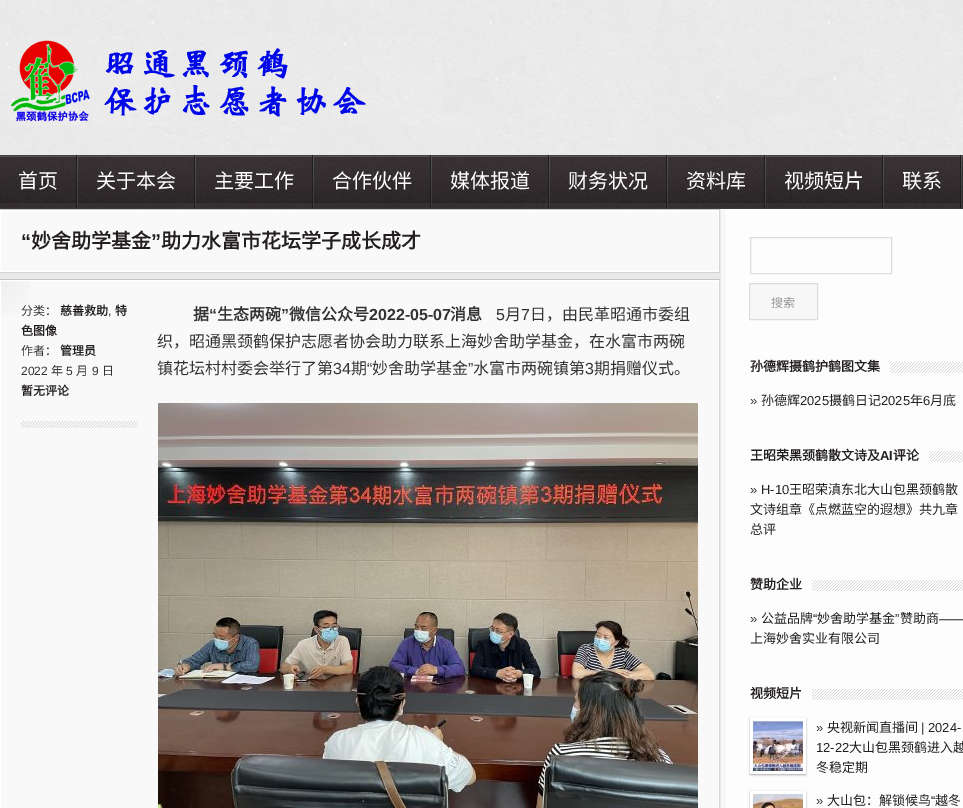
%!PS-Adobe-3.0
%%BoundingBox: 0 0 963 808
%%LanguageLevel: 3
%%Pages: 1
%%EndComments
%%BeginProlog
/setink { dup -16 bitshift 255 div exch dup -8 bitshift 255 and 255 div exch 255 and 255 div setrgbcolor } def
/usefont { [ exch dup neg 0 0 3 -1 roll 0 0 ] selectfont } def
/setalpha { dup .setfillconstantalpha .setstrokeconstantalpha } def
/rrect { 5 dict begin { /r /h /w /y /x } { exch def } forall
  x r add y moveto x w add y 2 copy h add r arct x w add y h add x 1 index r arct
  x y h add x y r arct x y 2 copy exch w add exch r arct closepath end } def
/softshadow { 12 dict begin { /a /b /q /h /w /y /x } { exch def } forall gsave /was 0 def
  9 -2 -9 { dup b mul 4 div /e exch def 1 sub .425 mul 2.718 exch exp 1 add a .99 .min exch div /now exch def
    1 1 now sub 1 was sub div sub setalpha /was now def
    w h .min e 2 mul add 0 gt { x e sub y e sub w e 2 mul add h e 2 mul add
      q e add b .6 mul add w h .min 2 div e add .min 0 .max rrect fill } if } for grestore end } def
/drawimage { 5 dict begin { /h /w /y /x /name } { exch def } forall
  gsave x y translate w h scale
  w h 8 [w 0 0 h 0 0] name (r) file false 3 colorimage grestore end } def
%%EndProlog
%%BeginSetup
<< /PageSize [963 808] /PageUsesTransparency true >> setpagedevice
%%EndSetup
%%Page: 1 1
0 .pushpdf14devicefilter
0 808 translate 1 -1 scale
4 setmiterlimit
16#FFFFFF setink
0 0 963 808 rectfill
(img1.raw) 0 0 963 155 drawimage
(img2.raw) 0 36 443 90 drawimage
(img3.raw) 0 155 963 54 drawimage
(img4.raw) 76 155 2 54 drawimage
/NotoSansCJKSC-Regular 20 usefont
18 188 moveto (首页) show
(img5.raw) 194 155 2 54 drawimage
96 188 moveto (关于本会) show
(img6.raw) 312 155 2 54 drawimage
214 188 moveto (主要工作) show
(img7.raw) 430 155 2 54 drawimage
332 188 moveto (合作伙伴) show
(img8.raw) 548 155 2 54 drawimage
450 188 moveto (媒体报道) show
(img9.raw) 666 155 2 54 drawimage
568 188 moveto (财务状况) show
(img10.raw) 764 155 2 54 drawimage
686 188 moveto (资料库) show
(img11.raw) 882 155 2 54 drawimage
784 188 moveto (视频短片) show
(img12.raw) 960 155 2 54 drawimage
902 188 moveto (联系) show
16#AAAAAA setink
0 210 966 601 0 1 1 softshadow
[
    [726 209 237 599 16#FDFDFD]
    [720 209 6 599 16#F7F7F7]
    [1 211 717 60 16#F9F9F9]
] { aload pop setink rectfill } forall
16#C6C6C3 setink
-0.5 209.5 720 63 rectstroke
16#FFFFFF setink
0.5 210.5 718 61 rectstroke
/LiberationSans-Bold 20 usefont
16#231F20 setink
21 248 moveto (“) show
/NotoSansCJKSC-Bold 20 usefont
31 248 moveto (妙舍助学基金) show
/LiberationSans-Bold 20 usefont
151 248 moveto (”) show
/NotoSansCJKSC-Bold 20 usefont
161 248 moveto (助力水富市花坛学子成长成才) show
16#E9E9E9 setink
0 273 721 6 rectfill
16#F9F9F9 setink
1 281 717 527 rectfill
16#C6C6C3 setink
-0.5 279.5 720 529 rectstroke
(img13.raw) 1 281 30 34 drawimage
16#FFFFFF setink
0.5 280.5 718 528 rectstroke
/NotoSansCJKSC-Regular 12 usefont
16#333333 setink
21 315 moveto (分类：) show
/NotoSansCJKSC-Bold 12 usefont
16#231F20 setink
60 315 moveto (慈善救助) show
/LiberationSans-Regular 12 usefont
16#333333 setink
108 315 moveto (,) show
/NotoSansCJKSC-Bold 12 usefont
16#231F20 setink
115 315 moveto (特) show
21 335 moveto (色图像) show
/NotoSansCJKSC-Regular 12 usefont
16#333333 setink
21 355 moveto (作者：) show
/NotoSansCJKSC-Bold 12 usefont
16#231F20 setink
60 355 moveto (管理员) show
/LiberationSans-Regular 12 usefont
16#333333 setink
21 375 moveto (2022) show
/NotoSansCJKSC-Regular 12 usefont
51 375 moveto (年) show
/LiberationSans-Regular 12 usefont
66 375 moveto (5) show
/NotoSansCJKSC-Regular 12 usefont
76 375 moveto (月) show
/LiberationSans-Regular 12 usefont
92 375 moveto (9) show
/NotoSansCJKSC-Regular 12 usefont
102 375 moveto (日) show
/NotoSansCJKSC-Bold 12 usefont
16#231F20 setink
21 395 moveto (暂无评论) show
(img14.raw) 21 421 116 7 drawimage
/NotoSansCJKSC-Bold 16 usefont
16#333333 setink
193 320 moveto (据) show
/LiberationSans-Bold 16 usefont
209 320 moveto (“) show
/NotoSansCJKSC-Bold 16 usefont
217 320 moveto (生态两碗) show
/LiberationSans-Bold 16 usefont
281 320 moveto (”) show
/NotoSansCJKSC-Bold 16 usefont
289 320 moveto (微信公众号) show
/LiberationSans-Bold 16 usefont
369 320 moveto (2022-05-07) show
/NotoSansCJKSC-Bold 16 usefont
450 320 moveto (消息) show
/LiberationSans-Regular 16 usefont
496 320 moveto (5) show
/NotoSansCJKSC-Regular 16 usefont
505 320 moveto (月) show
/LiberationSans-Regular 16 usefont
521 320 moveto (7) show
/NotoSansCJKSC-Regular 16 usefont
[
    [(日，由民革昭通市委组) 530 320]
    [(织，昭通黑颈鹤保护志愿者协会助力联系上海妙舍助学基金，在水富市两碗) 157 347]
    [(镇花坛村村委会举行了第) 157 374]
] { aload pop moveto show } forall
/LiberationSans-Regular 16 usefont
333 374 moveto (34) show
/NotoSansCJKSC-Regular 16 usefont
351 374 moveto (期) show
/LiberationSans-Regular 16 usefont
367 374 moveto (“) show
/NotoSansCJKSC-Regular 16 usefont
372 374 moveto (妙舍助学基金) show
/LiberationSans-Regular 16 usefont
468 374 moveto (”) show
/NotoSansCJKSC-Regular 16 usefont
473 374 moveto (水富市两碗镇第) show
/LiberationSans-Regular 16 usefont
585 374 moveto (3) show
/NotoSansCJKSC-Regular 16 usefont
594 374 moveto (期捐赠仪式。) show
(img15.raw) 158 403 540 405 drawimage
16#DDDDDD setink
750.5 237.5 141 36 rectstroke
16#F7F7F7 setink
749.5 283.5 moveto 817.5 283.5 lineto 817.5 319.5 lineto 749.5 319.5 lineto closepath gsave fill grestore
16#DDDDDD setink
stroke
/NotoSansCJKSC-Regular 12 usefont
16#949494 setink
771 307 moveto (搜索) show
(img16.raw) 890 362 73 11 drawimage
/NotoSansCJKSC-Bold 13 usefont
16#231F20 setink
750 371 moveto (孙德辉摄鹤护鹤图文集) show
/LiberationSans-Regular 13 usefont
16#333333 setink
750 405 moveto (») show
/NotoSansCJKSC-Regular 13 usefont
16#231F20 setink
761 405 moveto (孙德辉) show
/LiberationSans-Regular 13 usefont
800 405 moveto (2025) show
/NotoSansCJKSC-Regular 13 usefont
829 405 moveto (摄鹤日记) show
/LiberationSans-Regular 13 usefont
881 405 moveto (2025) show
/NotoSansCJKSC-Regular 13 usefont
910 405 moveto (年) show
/LiberationSans-Regular 13 usefont
923 405 moveto (6) show
/NotoSansCJKSC-Regular 13 usefont
930 405 moveto (月底) show
(img17.raw) 929 451 34 11 drawimage
/NotoSansCJKSC-Bold 13 usefont
750 460 moveto (王昭荣黑颈鹤散文诗及) show
/LiberationSans-Bold 13 usefont
880 460 moveto (AI) show
/NotoSansCJKSC-Bold 13 usefont
893 460 moveto (评论) show
/LiberationSans-Regular 13 usefont
16#333333 setink
750 494 moveto (») show
16#231F20 setink
761 494 moveto (H-10) show
/NotoSansCJKSC-Regular 13 usefont
[
    [(王昭荣滇东北大山包黑颈鹤散) 789 494]
    [(文诗组章《点燃蓝空的遐想》共九章) 750 514]
    [(总评) 750 534]
] { aload pop moveto show } forall
(img18.raw) 812 580 151 11 drawimage
/NotoSansCJKSC-Bold 13 usefont
750 589 moveto (赞助企业) show
/NotoSansCJKSC-Regular 13 usefont
761 623 moveto (公益品牌) show
/LiberationSans-Regular 13 usefont
813 623 moveto (“) show
/NotoSansCJKSC-Regular 13 usefont
817 623 moveto (妙舍助学基金) show
/LiberationSans-Regular 13 usefont
895 623 moveto (”) show
/NotoSansCJKSC-Regular 13 usefont
900 623 moveto (赞助商) show
/LiberationSans-Regular 13 usefont
16#333333 setink
750 623 moveto (») show
16#231F20 setink
939 623 moveto (——) show
/NotoSansCJKSC-Regular 13 usefont
750 643 moveto (上海妙舍实业有限公司) show
(img18.raw) 812 689 151 11 drawimage
/NotoSansCJKSC-Bold 13 usefont
750 698 moveto (视频短片) show
16#AAAAAA setink
750 719 56 56 0 1 1 softshadow
16#FFFFFF setink
750 718 56 56 rectfill
(img19.raw) 753 721 50 50 drawimage
/LiberationSans-Regular 13 usefont
16#333333 setink
816 732 moveto (») show
/NotoSansCJKSC-Regular 13 usefont
16#231F20 setink
827 732 moveto (央视新闻直播间) show
/LiberationSans-Regular 13 usefont
921 732 moveto (| 2024-) show
816 752 moveto (12-22) show
/NotoSansCJKSC-Regular 13 usefont
849 752 moveto (大山包黑颈鹤进入越) show
816 772 moveto (冬稳定期) show
16#AAAAAA setink
750 792 56 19 0 1 1 softshadow
16#FFFFFF setink
750 791 56 17 rectfill
(img20.raw) 753 794 50 14 drawimage
16#231F20 setink
827 805 moveto (大山包：解锁候鸟) show
/LiberationSans-Regular 13 usefont
931 805 moveto (“) show
/NotoSansCJKSC-Regular 13 usefont
935 805 moveto (越冬) show
/LiberationSans-Regular 13 usefont
16#333333 setink
816 805 moveto (») show
.poppdf14devicefilter showpage
%%EOF
